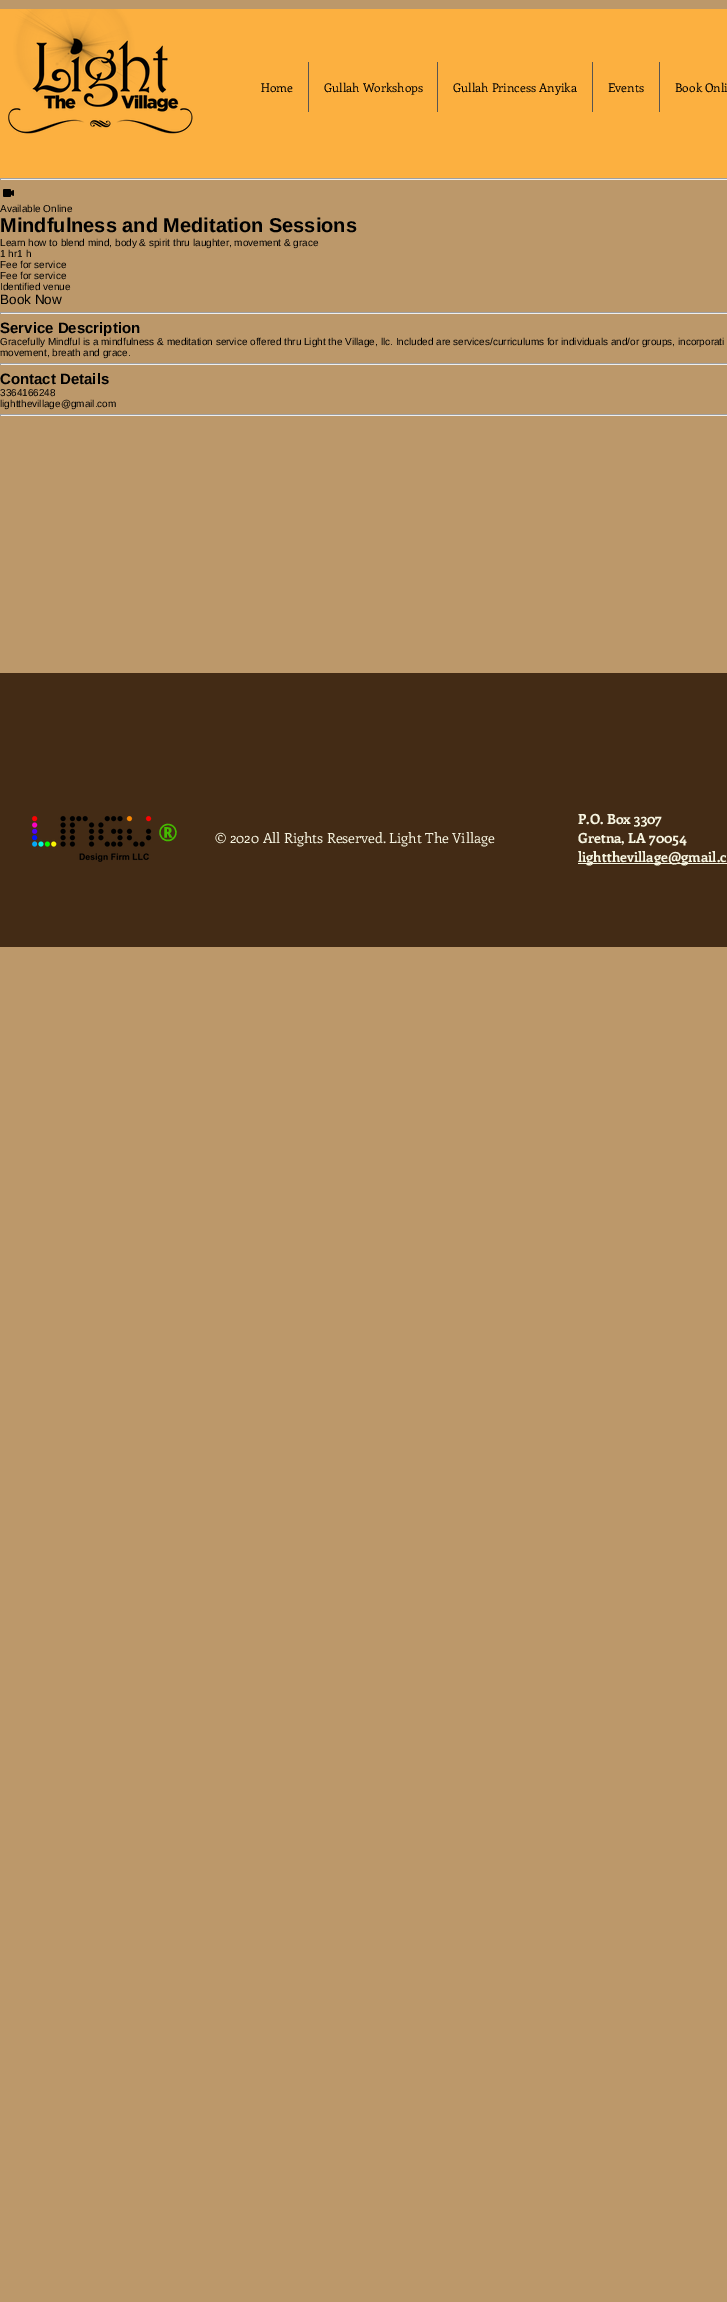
%!PS-Adobe-3.0
%%BoundingBox: 0 0 727 2302
%%LanguageLevel: 3
%%Pages: 1
%%EndComments
%%BeginProlog
/setink { dup -16 bitshift 255 div exch dup -8 bitshift 255 and 255 div exch 255 and 255 div setrgbcolor } def
/usefont { [ exch dup neg 0 0 3 -1 roll 0 0 ] selectfont } def
/drawimage { 5 dict begin { /h /w /y /x /name } { exch def } forall
  gsave x y translate w h scale
  w h 8 [w 0 0 h 0 0] name (r) file false 3 colorimage grestore end } def
%%EndProlog
%%BeginSetup
<< /PageSize [727 2302] >> setpagedevice
%%EndSetup
%%Page: 1 1
0 2302 translate 1 -1 scale
4 setmiterlimit
16#BC986A setink
0 0 727 2302 rectfill
16#FCB040 setink
0 9 727 169 rectfill
(img1.raw) 8 9 185 125 drawimage
/Enriqueta-Regular 12 usefont
16#000000 setink
261 92 moveto (Home) show
16#585551 setink
308 62 1 50 rectfill
16#000000 setink
324 92 moveto (Gullah Workshops) show
16#585551 setink
437 62 1 50 rectfill
16#000000 setink
453 92 moveto (Gullah Princess Anyika) show
16#585551 setink
592 62 1 50 rectfill
16#000000 setink
608 92 moveto (Events) show
16#585551 setink
659 62 1 50 rectfill
16#000000 setink
675 92 moveto (Book Onli) show
[
    [0 178 727 1 16#9F9F9F]
    [0 179 727 1 16#EEEEEE]
    [0 178 1 2 16#9F9F9F]
] { aload pop setink rectfill } forall
(img2.raw) 3 189 11 8 drawimage
/LiberationSans-Regular 10 usefont
16#000000 setink
0 212 moveto (Available Online) show
/LiberationSans-Bold 20 usefont
0 232 moveto (Mindfulness and Meditation Sessions) show
/LiberationSans-Regular 10 usefont
[
    [(Learn how to blend mind, body & spirit thru laughter, movement & grace) 0 246]
    [(1 hr1 h) 0 257]
    [(Fee for service) 0 268]
    [(Fee for service) 0 279]
    [(Identified venue) 0 290]
] { aload pop moveto show } forall
/LiberationSans-Regular 13.5 usefont
0 304 moveto (Book Now) show
[
    [0 312 727 1 16#9F9F9F]
    [0 313 727 1 16#EEEEEE]
    [0 312 1 2 16#9F9F9F]
] { aload pop setink rectfill } forall
/LiberationSans-Bold 15 usefont
16#000000 setink
0 333 moveto (Service Description) show
/LiberationSans-Regular 10 usefont
0 345 moveto (Gracefully Mindful is a mindfulness & meditation service offered thru Light the Village, llc. Included are services/curriculums for individuals and/or groups, incorporati) show
0 356 moveto (movement, breath and grace.) show
[
    [0 363 727 1 16#9F9F9F]
    [0 364 727 1 16#EEEEEE]
    [0 363 1 2 16#9F9F9F]
] { aload pop setink rectfill } forall
/LiberationSans-Bold 15 usefont
16#000000 setink
0 384 moveto (Contact Details) show
/LiberationSans-Regular 10 usefont
0 396 moveto (3364166248) show
0 407 moveto (lightthevillage@gmail.com) show
[
    [0 414 727 1 16#9F9F9F]
    [0 415 727 1 16#EEEEEE]
    [0 414 1 2 16#9F9F9F]
    [0 673 727 274 16#432B15]
] { aload pop setink rectfill } forall
(img3.raw) 31 815 121 47 drawimage
/OpenSans-Bold 24 usefont
16#45BA01 setink
158 841 moveto (®) show
/Enriqueta-Regular 14 usefont
16#F7F5E1 setink
215 843 moveto (© 2020 All Rights Reserved. Light The Village) show
/Enriqueta-Bold 14 usefont
578 824 moveto (P.O. Box 3307) show
578 843 moveto (Gretna, LA 70054) show
578 863 149 1 rectfill
578 862 moveto (lightthevillage@gmail.c) show
showpage
%%EOF
